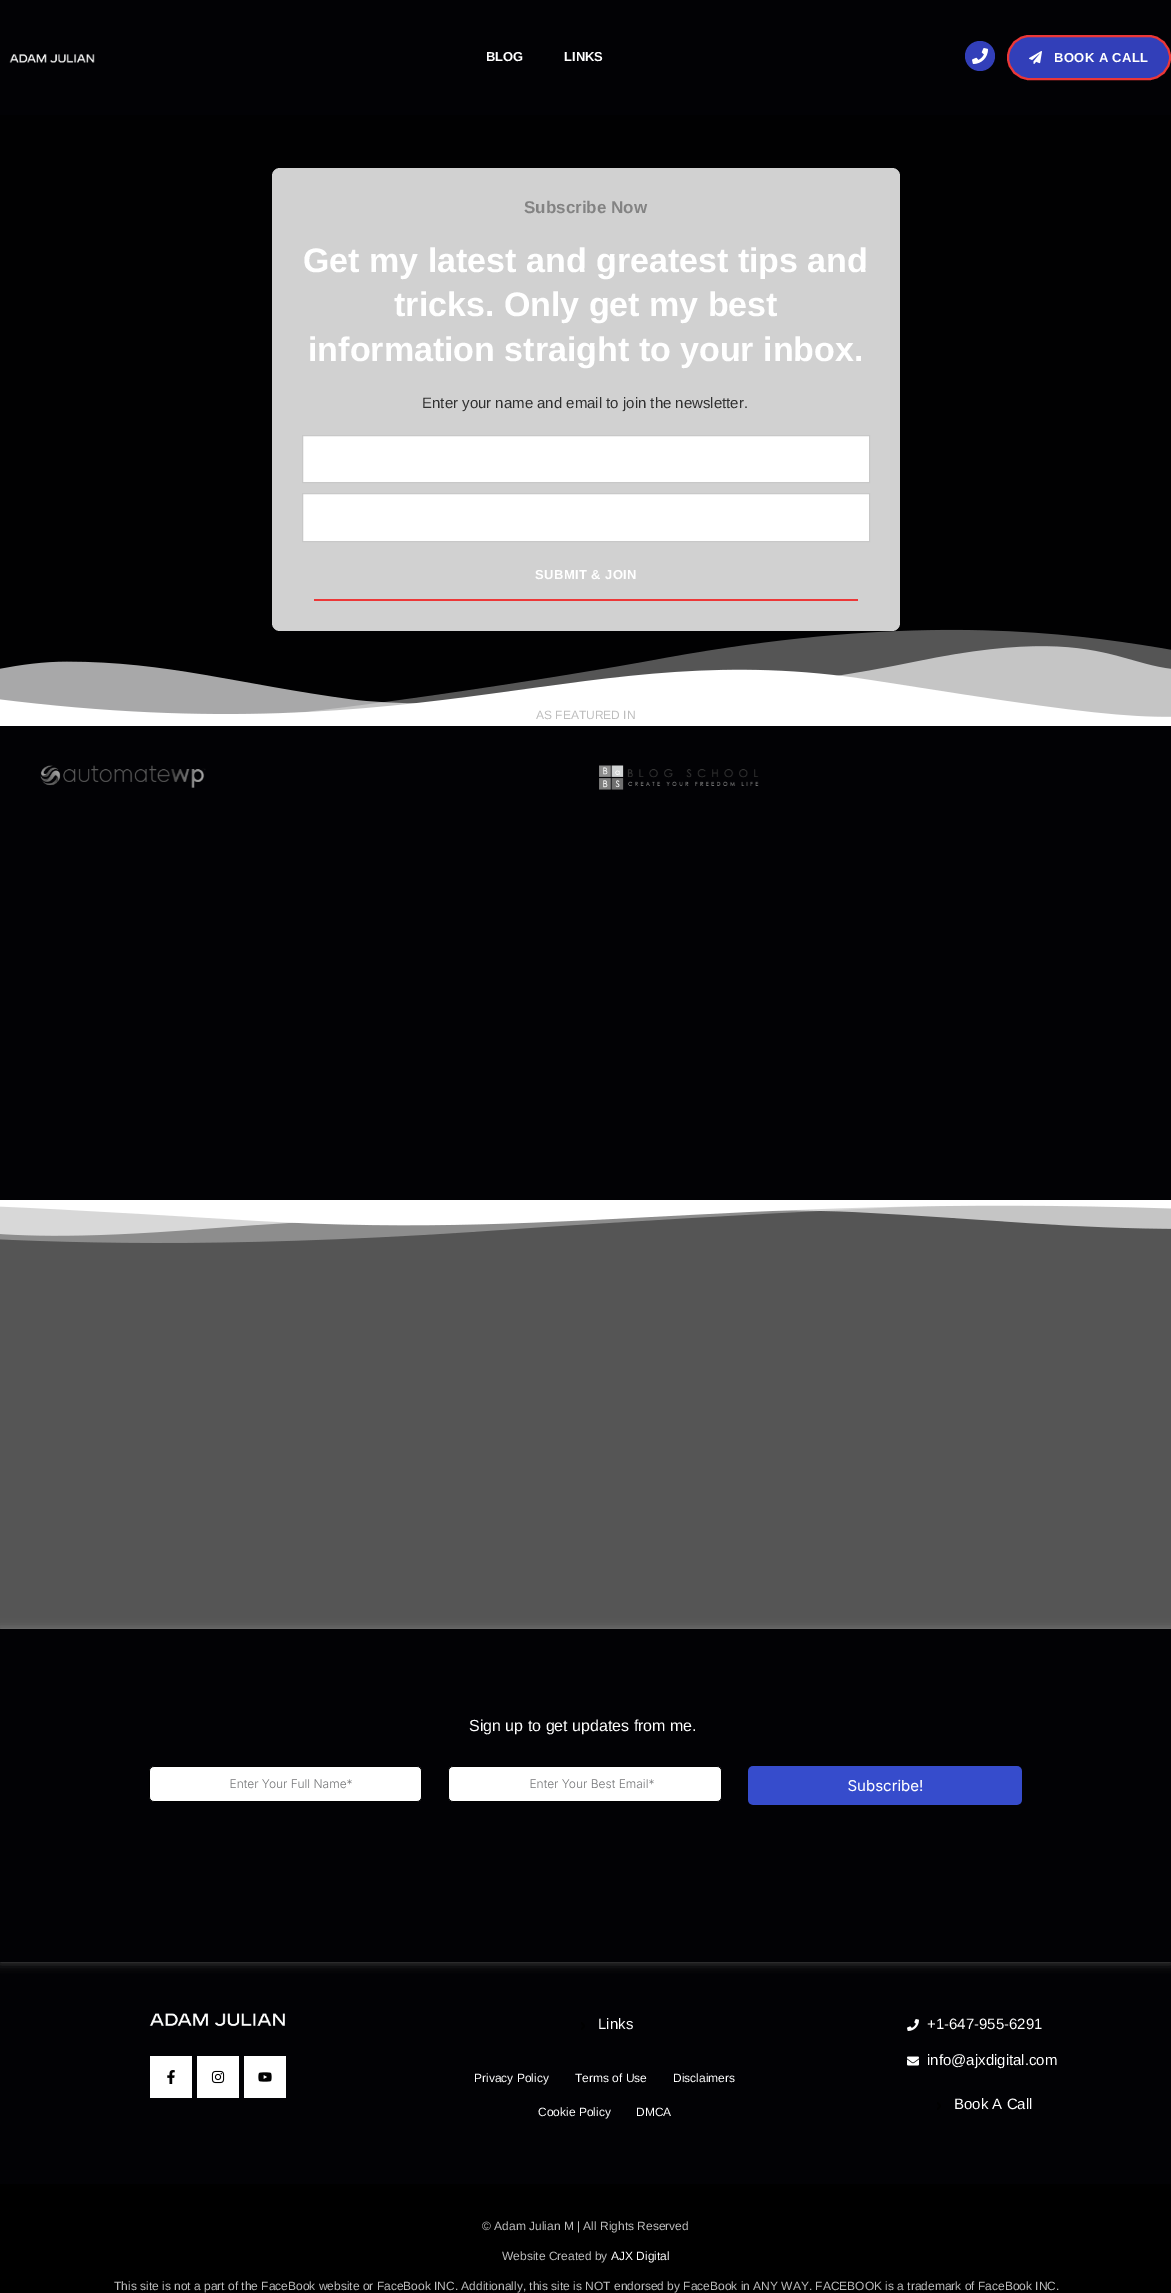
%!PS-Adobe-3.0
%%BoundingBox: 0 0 1171 2293
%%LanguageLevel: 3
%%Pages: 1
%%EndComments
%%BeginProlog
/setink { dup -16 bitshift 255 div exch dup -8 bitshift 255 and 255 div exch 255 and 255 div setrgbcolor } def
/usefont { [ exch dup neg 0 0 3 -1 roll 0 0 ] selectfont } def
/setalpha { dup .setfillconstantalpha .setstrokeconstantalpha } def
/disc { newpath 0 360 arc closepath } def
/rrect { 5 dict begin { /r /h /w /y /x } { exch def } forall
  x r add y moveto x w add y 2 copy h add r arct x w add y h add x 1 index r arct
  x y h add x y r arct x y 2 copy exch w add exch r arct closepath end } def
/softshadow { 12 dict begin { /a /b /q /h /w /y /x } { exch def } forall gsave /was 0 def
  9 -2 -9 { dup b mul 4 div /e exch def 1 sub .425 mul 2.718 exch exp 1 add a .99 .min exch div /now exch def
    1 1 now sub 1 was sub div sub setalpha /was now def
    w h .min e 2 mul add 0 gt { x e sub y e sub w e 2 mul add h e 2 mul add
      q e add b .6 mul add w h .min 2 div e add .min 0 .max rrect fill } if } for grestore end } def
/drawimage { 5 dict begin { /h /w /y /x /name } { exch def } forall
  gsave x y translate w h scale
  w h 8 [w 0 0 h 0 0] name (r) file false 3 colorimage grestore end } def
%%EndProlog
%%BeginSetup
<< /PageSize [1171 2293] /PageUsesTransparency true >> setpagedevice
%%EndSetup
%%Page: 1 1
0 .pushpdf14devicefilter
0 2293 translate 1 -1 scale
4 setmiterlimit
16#020205 setink
0 0 1171 2293 rectfill
(img1.raw) 9 54 86 9 drawimage
/LiberationSans-Bold 13 usefont
16#FFFFFF setink
486 61 moveto (BLOG) show
564 61 moveto (LINKS) show
16#323FB9 setink
980 56 15 disc fill
(img2.raw) 972 48 16 16 drawimage
1008 36 162 43 21.5 rrect gsave fill grestore
16#EC3737 setink
2 setlinewidth
stroke
(img3.raw) 1029 51 13 13 drawimage
16#FFFFFF setink
1054 62 moveto 0.4 0 (BOOK A CALL) ashow
16#010102 setink
0 115 1171 602 rectfill
(img4.raw) 0 629 1171 97 drawimage
16#D1D1D1 setink
272 168 628 463 8 rrect fill
/LiberationSans-Bold 17 usefont
16#838383 setink
524 213 moveto (Subscribe Now) show
/LiberationSans-Bold 34 usefont
16#FFFFFF setink
[
    [(Get my latest and greatest tips and) 303 272]
    [(tricks. Only get my best) 394 316]
    [(information straight to your inbox.) 308 361]
] { aload pop moveto show } forall
/LiberationSans-Regular 15 usefont
16#303030 setink
422 408 moveto (Enter your name and email to join the newsletter.) show
16#FFFFFF setink
302.5 435.5 moveto 869.5 435.5 lineto 869.5 482.5 lineto 302.5 482.5 lineto closepath gsave fill grestore
16#C8C8C8 setink
1 setlinewidth
stroke
16#FFFFFF setink
302.5 493.5 moveto 869.5 493.5 lineto 869.5 541.5 lineto 302.5 541.5 lineto closepath gsave fill grestore
16#C8C8C8 setink
stroke
16#EC3737 setink
314 599 544 2 rectfill
/LiberationSans-Bold 13 usefont
16#FFFFFF setink
535 579 moveto 0.4 0 (SUBMIT & JOIN) ashow
/LiberationSans-Regular 12 usefont
16#BDBDBD setink
536 719 moveto (AS FEATURED IN) show
(img5.raw) 40 765 166 23 drawimage
(img6.raw) 599 765 160 25 drawimage
16#555555 setink
0 1205 1171 424 rectfill
(img7.raw) 0 1200 1171 43 drawimage
gsave
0 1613 moveto 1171 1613 lineto 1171 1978 lineto 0 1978 lineto closepath 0 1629 moveto 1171 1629 lineto 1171 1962 lineto 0 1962 lineto closepath eoclip newpath
16#A2A2A2 setink
0 1629 1171 333 0 5 0.5 softshadow
grestore
/LiberationSans-Regular 16 usefont
16#FFFFFF setink
469 1731 moveto (Sign up to get updates from me.) show
(img8.raw) 149 1766 873 39 drawimage
(img9.raw) 149 2013 136 14 drawimage
150 2056 42 42 rectfill
(img10.raw) 167 2070 8 14 drawimage
197 2056 42 42 rectfill
(img11.raw) 211 2070 14 14 drawimage
244 2056 42 42 rectfill
(img12.raw) 258 2072 14 10 drawimage
(img13.raw) 581 2022 4 8 drawimage
/LiberationSans-Regular 15 usefont
598 2029 moveto (Links) show
/LiberationSans-Regular 12 usefont
[
    [(Privacy Policy) 474 2082]
    [(Terms of Use) 575 2082]
    [(Disclaimers) 673 2082]
    [(Cookie Policy) 538 2116]
    [(DMCA) 636 2116]
] { aload pop moveto show } forall
(img14.raw) 907 2019 12 12 drawimage
/LiberationSans-Regular 15 usefont
927 2029 moveto (+1-647-955-6291) show
(img15.raw) 907 2056 12 10 drawimage
927 2065 moveto (info@ajxdigital.com) show
(img13.raw) 937 2102 4 8 drawimage
954 2109 moveto (Book A Call) show
16#000000 setink
0 2184 1171 109 rectfill
/LiberationSans-Regular 12 usefont
16#BDBDBD setink
482 2230 moveto (© Adam Julian M | All Rights Reserved) show
502 2260 moveto (Website Created by) show
16#FFFFFF setink
611 2260 moveto (AJX Digital) show
16#BDBDBD setink
114 2290 moveto (This site is not a part of the FaceBook website or FaceBook INC. Additionally, this site is NOT endorsed by FaceBook in ANY WAY. FACEBOOK is a trademark of FaceBook INC.) show
.poppdf14devicefilter showpage
%%EOF
